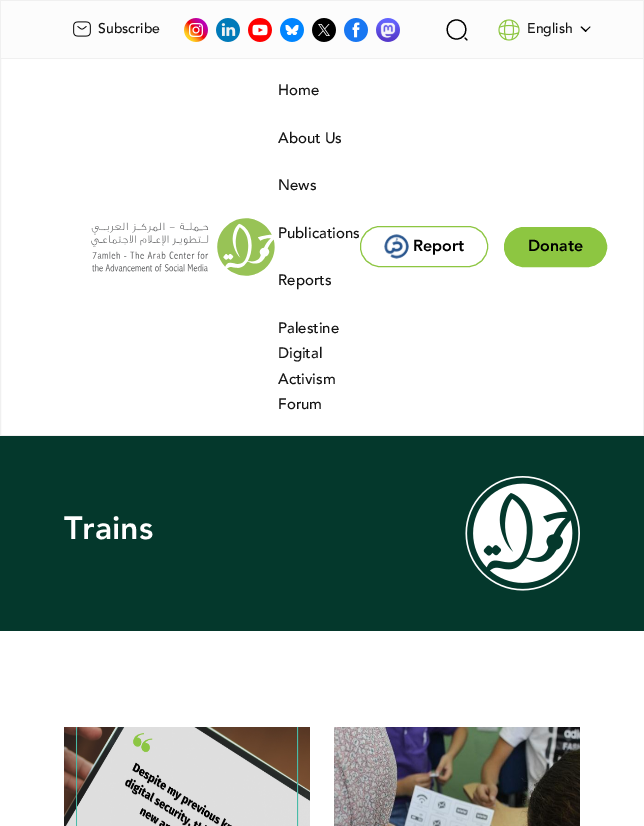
%!PS-Adobe-3.0
%%BoundingBox: 0 0 644 826
%%LanguageLevel: 3
%%Pages: 1
%%EndComments
%%BeginProlog
/setink { dup -16 bitshift 255 div exch dup -8 bitshift 255 and 255 div exch 255 and 255 div setrgbcolor } def
/usefont { [ exch dup neg 0 0 3 -1 roll 0 0 ] selectfont } def
/rrect { 5 dict begin { /r /h /w /y /x } { exch def } forall
  x r add y moveto x w add y 2 copy h add r arct x w add y h add x 1 index r arct
  x y h add x y r arct x y 2 copy exch w add exch r arct closepath end } def
/drawimage { 5 dict begin { /h /w /y /x /name } { exch def } forall
  gsave x y translate w h scale
  w h 8 [w 0 0 h 0 0] name (r) file false 3 colorimage grestore end } def
%%EndProlog
%%BeginSetup
<< /PageSize [644 826] >> setpagedevice
%%EndSetup
%%Page: 1 1
0 826 translate 1 -1 scale
4 setmiterlimit
16#FFFFFF setink
0 0 644 826 rectfill
16#F0F0F0 setink
0.5 0.5 643 435 rectstroke
16#FCFCFC setink
1 1 642 57 rectfill
16#F0F0F0 setink
1 58 642 1 rectfill
(img1.raw) 73 21 18 16 drawimage
/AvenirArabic-Medium 14 usefont
16#151515 setink
98 33 moveto (Subscribe) show
(img2.raw) 184 18 24 24 drawimage
(img3.raw) 216 18 24 24 drawimage
(img4.raw) 248 18 24 24 drawimage
(img5.raw) 280 18 24 24 drawimage
(img6.raw) 312 18 24 24 drawimage
(img7.raw) 344 18 24 24 drawimage
(img8.raw) 376 18 24 24 drawimage
16#000000 setink
1.2 setlinewidth
1 setlinecap
1 setlinejoin
456.5 39 moveto 469 39 469 20 456.5 20 curveto 444 20 444 39 456.5 39 curveto closepath 467 40 moveto 465 38 lineto stroke
(img9.raw) 498 19 22 22 drawimage
16#151515 setink
527 33 moveto (English) show
16#000000 setink
585.5 32 moveto 580.5 27 lineto 581.5 26.5 lineto 586.5 31 lineto closepath fill
585.5 32 moveto 585 31 lineto 590 26.5 lineto 590.5 27 lineto closepath fill
(img10.raw) 91 218 184 58 drawimage
/AvenirArabic-Medium 15 usefont
16#151515 setink
[
    [(Home) 278 95]
    [(About Us) 278 143]
    [(News) 278 190]
    [(Publications) 278 238]
    [(Reports) 278 285]
    [(Palestine) 278 333]
    [(Digital) 278 358]
    [(Activism) 278 384]
    [(Forum) 278 409]
] { aload pop moveto show } forall
16#8DC641 setink
1 setlinewidth
0 setlinecap
0 setlinejoin
360.5 226.5 127 40 19.5 rrect stroke
(img11.raw) 384 234 25 25 drawimage
/AvenirArabic-Black 16 usefont
16#000000 setink
413 251 moveto (Report) show
16#8DC641 setink
504.5 227.5 102 39 19.5 rrect gsave fill grestore
stroke
16#000000 setink
528 251 moveto (Donate) show
16#04382C setink
0 436 644 195 rectfill
/AvenirArabic-Black 32 usefont
16#FFFFFF setink
64 539 moveto (Trains) show
(img12.raw) 465 476 115 115 drawimage
(img13.raw) 64 727 246 99 drawimage
(img14.raw) 334 727 246 99 drawimage
showpage
%%EOF
